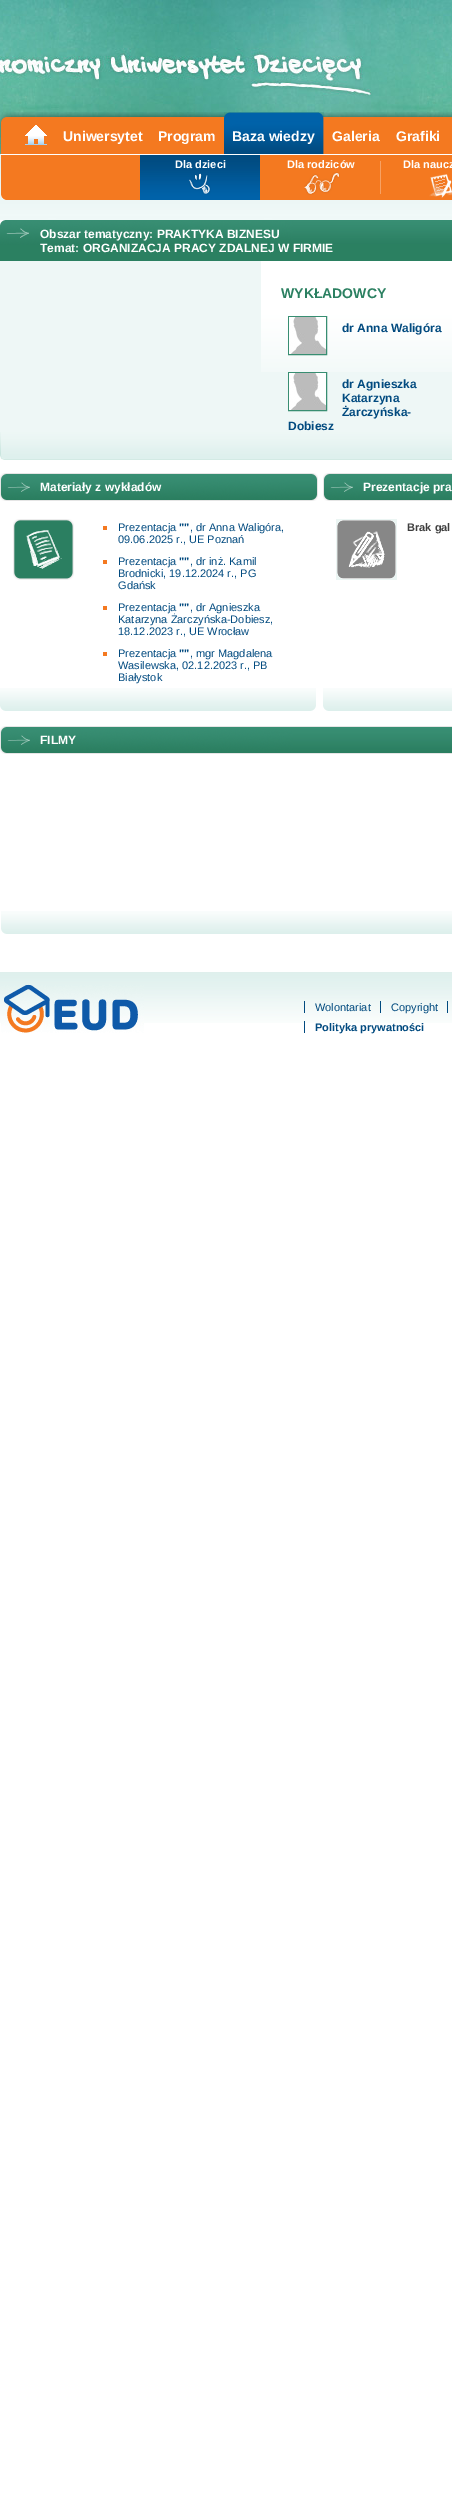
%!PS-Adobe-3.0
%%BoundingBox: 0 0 452 2498
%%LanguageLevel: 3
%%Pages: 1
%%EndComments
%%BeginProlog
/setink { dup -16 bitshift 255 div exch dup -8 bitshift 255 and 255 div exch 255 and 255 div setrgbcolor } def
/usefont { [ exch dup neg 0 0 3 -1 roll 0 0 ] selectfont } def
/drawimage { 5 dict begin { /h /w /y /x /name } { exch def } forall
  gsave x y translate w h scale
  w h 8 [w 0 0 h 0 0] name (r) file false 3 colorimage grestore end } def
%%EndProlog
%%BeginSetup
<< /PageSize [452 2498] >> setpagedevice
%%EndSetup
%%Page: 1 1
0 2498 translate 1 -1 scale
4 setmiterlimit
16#FFFFFF setink
0 0 452 2498 rectfill
(img1.raw) 0 154 452 66 drawimage
(img2.raw) 0 0 452 154 drawimage
(img3.raw) 0 112 452 43 drawimage
(img4.raw) 25 125 22 20 drawimage
/LiberationSans-Bold 14 usefont
63 141 moveto (Uniwersytet) show
158 141 moveto (Program) show
(img5.raw) 319 112 5 42 drawimage
(img6.raw) 224 112 95 42 drawimage
[
    [(Baza wiedzy) 232 141]
    [(Galeria) 332 141]
    [(Grafiki) 396 141]
] { aload pop moveto show } forall
(img7.raw) 1 155 451 45 drawimage
(img8.raw) 140 155 120 45 drawimage
(img9.raw) 189 173 22 22 drawimage
/LiberationSans-Bold 11 usefont
175 168 moveto (Dla dzieci) show
16#F7A163 setink
380 161 1 33 rectfill
(img10.raw) 304 172 36 23 drawimage
16#FFFFFF setink
287 168 moveto (Dla rodziców) show
(img11.raw) 429 174 23 24 drawimage
403 168 moveto (Dla naucz) show
16#EEF7F6 setink
0 261 452 171 rectfill
(img12.raw) 0 432 452 28 drawimage
(img13.raw) 0 220 452 41 drawimage
/LiberationSans-Bold 12 usefont
16#FFFFFF setink
40 238 moveto (Obszar tematyczny: PRAKTYKA BIZNESU) show
40 252 moveto (Temat: ORGANIZACJA PRACY ZDALNEJ W FIRMIE) show
(img14.raw) 261 261 191 111 drawimage
/LiberationSans-Bold 14 usefont
16#2B8061 setink
281 298 moveto (WYKŁADOWCY) show
16#388E72 setink
288.5 316.5 38 38 rectstroke
(img15.raw) 289 317 37 37 drawimage
/LiberationSans-Bold 12 usefont
16#014A7F setink
342 332 moveto (dr Anna Waligóra) show
16#388E72 setink
288.5 372.5 38 38 rectstroke
(img15.raw) 289 373 37 37 drawimage
16#014A7F setink
[
    [(dr Agnieszka) 342 388]
    [(Katarzyna) 342 402]
    [(Żarczyńska-) 342 416]
    [(Dobiesz) 288 430]
] { aload pop moveto show } forall
(img16.raw) 0 688 452 23 drawimage
(img17.raw) 0 473 311 28 drawimage
(img18.raw) 311 473 7 28 drawimage
16#FFFFFF setink
40 491 moveto (Materiały z wykładów) show
(img19.raw) 13 519 61 61 drawimage
16#F47920 setink
103 526 4 4 rectfill
/LiberationSans-Regular 11 usefont
16#014A7F setink
118 531 moveto (Prezentacja) show
/LiberationSans-Bold 11 usefont
179 531 moveto ("") show
/LiberationSans-Regular 11 usefont
190 531 moveto (, dr Anna Waligóra,) show
118 543 moveto (09.06.2025 r., UE Poznań) show
16#F47920 setink
103 560 4 4 rectfill
16#014A7F setink
118 565 moveto (Prezentacja) show
/LiberationSans-Bold 11 usefont
179 565 moveto ("") show
/LiberationSans-Regular 11 usefont
[
    [(, dr inż. Kamil) 190 565]
    [(Brodnicki, 19.12.2024 r., PG) 118 577]
    [(Gdańsk) 118 589]
] { aload pop moveto show } forall
16#F47920 setink
103 606 4 4 rectfill
16#014A7F setink
118 611 moveto (Prezentacja) show
/LiberationSans-Bold 11 usefont
179 611 moveto ("") show
/LiberationSans-Regular 11 usefont
[
    [(, dr Agnieszka) 190 611]
    [(Katarzyna Żarczyńska-Dobiesz,) 118 623]
    [(18.12.2023 r., UE Wrocław) 118 635]
] { aload pop moveto show } forall
16#F47920 setink
103 652 4 4 rectfill
16#014A7F setink
118 657 moveto (Prezentacja) show
/LiberationSans-Bold 11 usefont
179 657 moveto ("") show
/LiberationSans-Regular 11 usefont
[
    [(, mgr Magdalena) 190 657]
    [(Wasilewska, 02.12.2023 r., PB) 118 669]
    [(Białystok) 118 681]
] { aload pop moveto show } forall
(img20.raw) 323 473 129 28 drawimage
/LiberationSans-Bold 12 usefont
16#FFFFFF setink
363 491 moveto (Prezentacje pra) show
(img21.raw) 336 519 61 61 drawimage
/LiberationSans-Bold 11 usefont
16#3F3F3F setink
407 531 moveto (Brak gal) show
(img22.raw) 1 911 451 23 drawimage
(img23.raw) 0 726 452 28 drawimage
/LiberationSans-Bold 12 usefont
16#FFFFFF setink
40 744 moveto (FILMY) show
(img24.raw) 0 972 452 51 drawimage
(img25.raw) 1 984 143 49 drawimage
/LiberationSans-Regular 11 usefont
16#014A7F setink
315 1011 moveto (Wolontariat) show
304 1001 1 12 rectfill
391 1011 moveto (Copyright) show
380 1001 1 12 rectfill
447 1001 1 12 rectfill
/LiberationSans-Bold 11 usefont
315 1031 moveto (Polityka prywatności) show
304 1021 1 12 rectfill
showpage
%%EOF
